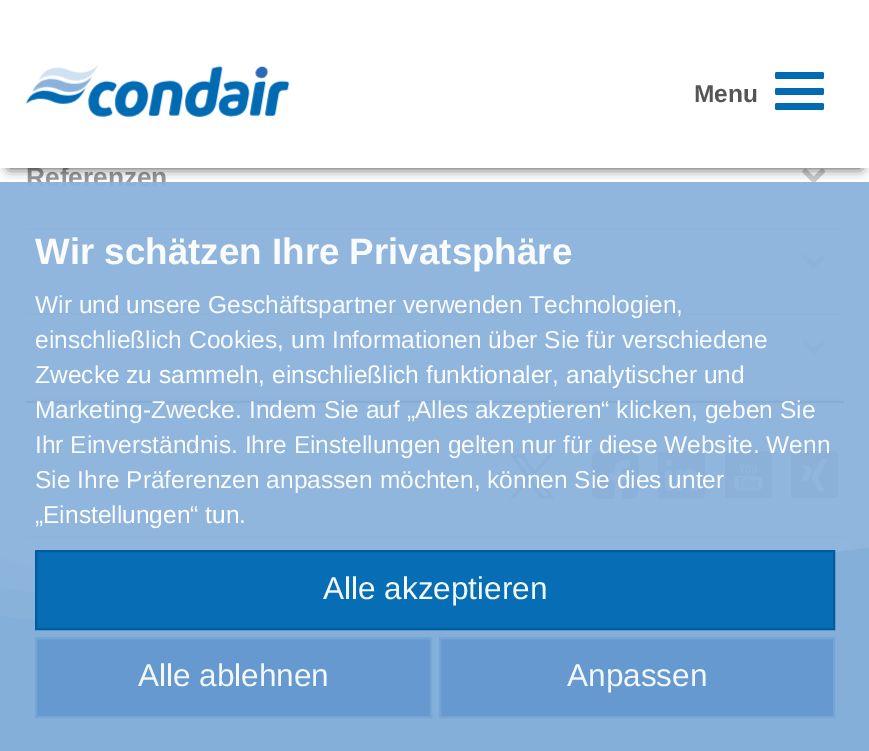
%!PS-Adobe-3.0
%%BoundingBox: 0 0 869 751
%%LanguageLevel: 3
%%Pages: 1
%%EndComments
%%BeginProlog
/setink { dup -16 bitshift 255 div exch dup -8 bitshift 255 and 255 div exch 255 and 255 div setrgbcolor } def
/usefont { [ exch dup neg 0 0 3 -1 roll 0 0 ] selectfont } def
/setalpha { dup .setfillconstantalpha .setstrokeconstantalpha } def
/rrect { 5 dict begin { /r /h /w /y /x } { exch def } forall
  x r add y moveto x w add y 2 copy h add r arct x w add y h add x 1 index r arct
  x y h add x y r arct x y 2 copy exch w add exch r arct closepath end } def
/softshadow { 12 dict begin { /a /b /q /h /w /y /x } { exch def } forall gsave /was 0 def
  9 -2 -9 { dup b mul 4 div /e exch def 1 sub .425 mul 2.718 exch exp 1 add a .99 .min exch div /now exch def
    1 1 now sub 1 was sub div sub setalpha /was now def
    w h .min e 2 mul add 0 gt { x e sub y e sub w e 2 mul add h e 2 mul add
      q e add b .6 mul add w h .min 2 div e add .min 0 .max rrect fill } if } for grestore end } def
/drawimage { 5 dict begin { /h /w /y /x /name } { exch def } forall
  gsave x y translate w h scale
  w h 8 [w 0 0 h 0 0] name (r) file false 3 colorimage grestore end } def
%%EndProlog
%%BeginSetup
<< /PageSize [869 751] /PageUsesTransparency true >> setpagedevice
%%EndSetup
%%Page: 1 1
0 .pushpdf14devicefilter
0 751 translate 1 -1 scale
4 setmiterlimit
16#FFFFFF setink
0 0 869 751 rectfill
/LiberationSans-Bold 26.25 usefont
16#999999 setink
26 186 moveto (Referenzen) show
16#FFFFFF setink
28 167 41 1 rectfill
(img3.raw) 802 168 23 15 drawimage
(img2.raw) 0 547 869 204 drawimage
16#DDDDDD setink
26 228 818 2 rectfill
26 313 818 2 rectfill
(img4.raw) 802 254 23 15 drawimage
26 399 818 2 rectfill
(img5.raw) 802 340 23 15 drawimage
16#555555 setink
26 401 818 2 rectfill
16#DDDDDD setink
26 536 818 2 rectfill
(img6.raw) 510 454 44 45 drawimage
(img7.raw) 592 451 47 48 drawimage
(img8.raw) 658 451 48 48 drawimage
(img9.raw) 725 451 47 48 drawimage
(img10.raw) 791 451 47 48 drawimage
0.95 setalpha
16#8AB2DB setink
0 182 869 569 rectfill
gsave
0 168 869 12 rectclip
1 setalpha
16#000000 setink
9 18 852 150 0 6 0.75 softshadow
grestore
1 setalpha
(img1.raw) 26 65 264 52 drawimage
/LiberationSans-Bold 24.5 usefont
16#555555 setink
694 102 moveto (Menu) show
16#006AB3 setink
775 72 49 7 2 rrect fill
775 88 49 7 2 rrect fill
775 103 49 7 2 rrect fill
/LiberationSans-Bold 36.75 usefont
16#F9FBFD setink
35 264 moveto (Wir schätzen Ihre Privatsphäre) show
/LiberationSans-Regular 24.5 usefont
35 313 moveto (Wir und unsere Geschäftspartner verwenden Technologien,) show
35 348 moveto (einschließlich Cookies, um Informationen über Sie für verschiedene) show
16#FFFFFF setink
35 383 moveto (Zwecke zu sammeln, einschließlich funktionaler, analytischer und) show
16#F9FBFD setink
[
    [(Marketing-Zwecke. Indem Sie auf „Alles akzeptieren“ klicken, geben Sie) 35 418]
    [(Ihr Einverständnis. Ihre Einstellungen gelten nur für diese Website. Wenn) 35 453]
    [(Sie Ihre Präferenzen anpassen möchten, können Sie dies unter) 35 488]
] { aload pop moveto show } forall
16#FFFFFF setink
35 523 moveto („Einstellungen“ tun.) show
0.95 setalpha
16#006AB3 setink
36 551 moveto 834 551 lineto 834 629 lineto 36 629 lineto closepath fill
1 setalpha
16#005C9B setink
2 setlinewidth
36 551 moveto 834 551 lineto 834 629 lineto 36 629 lineto closepath stroke
/LiberationSans-Regular 31.5 usefont
16#F3F8FB setink
323 599 moveto (Alle akzeptieren) show
0.95 setalpha
16#6398CF setink
36 638 moveto 431 638 lineto 431 717 lineto 36 717 lineto closepath fill
1 setalpha
16#75A4D5 setink
36 638 moveto 431 638 lineto 431 717 lineto 36 717 lineto closepath stroke
16#F3F8FB setink
138 686 moveto (Alle ablehnen) show
0.95 setalpha
16#6398CF setink
440 638 moveto 834 638 lineto 834 717 lineto 440 717 lineto closepath fill
1 setalpha
16#75A4D5 setink
440 638 moveto 834 638 lineto 834 717 lineto 440 717 lineto closepath stroke
16#F3F8FB setink
567 686 moveto (Anpassen) show
.poppdf14devicefilter showpage
%%EOF
